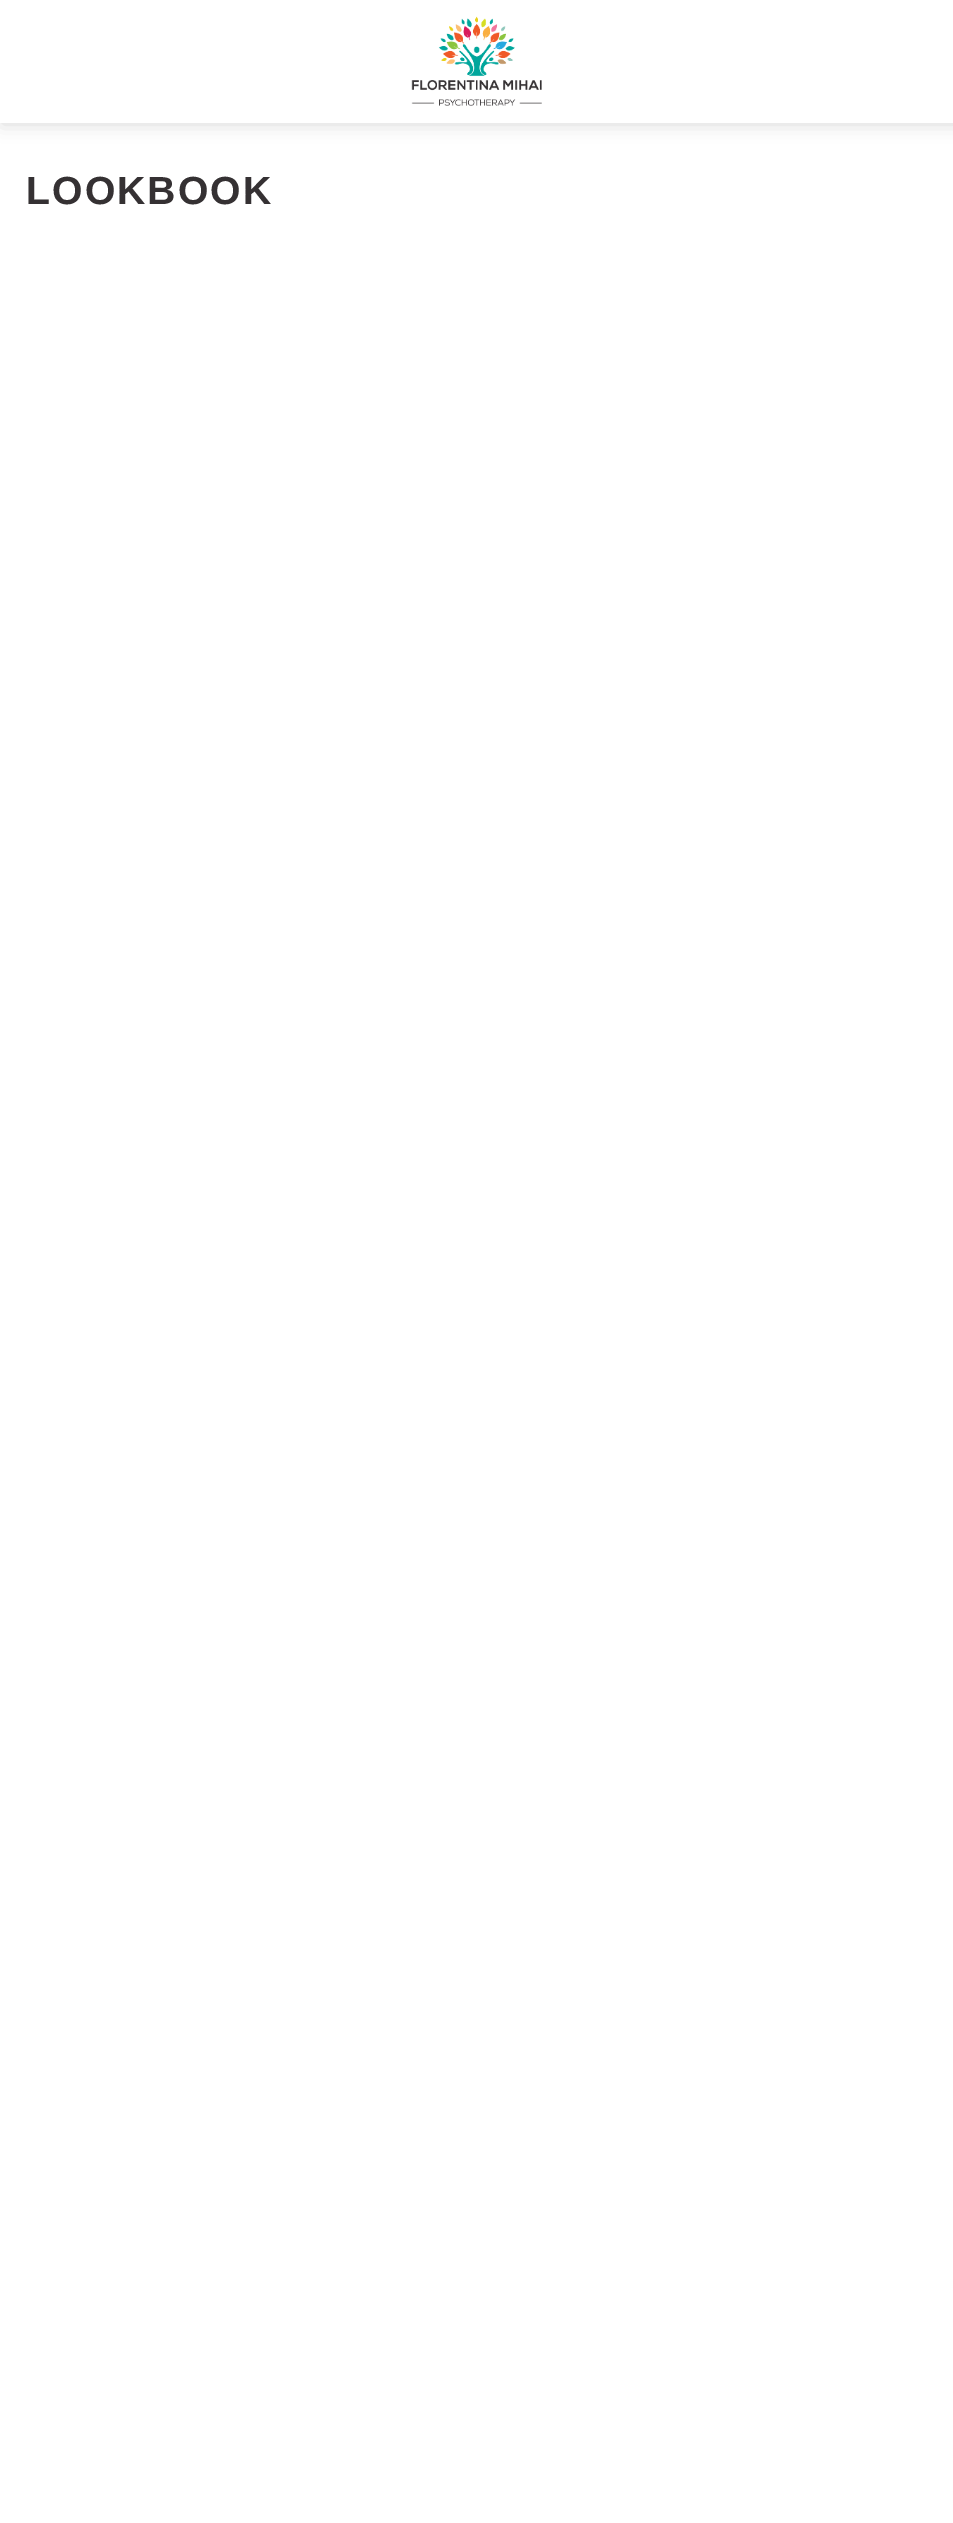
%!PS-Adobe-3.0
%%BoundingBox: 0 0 953 2523
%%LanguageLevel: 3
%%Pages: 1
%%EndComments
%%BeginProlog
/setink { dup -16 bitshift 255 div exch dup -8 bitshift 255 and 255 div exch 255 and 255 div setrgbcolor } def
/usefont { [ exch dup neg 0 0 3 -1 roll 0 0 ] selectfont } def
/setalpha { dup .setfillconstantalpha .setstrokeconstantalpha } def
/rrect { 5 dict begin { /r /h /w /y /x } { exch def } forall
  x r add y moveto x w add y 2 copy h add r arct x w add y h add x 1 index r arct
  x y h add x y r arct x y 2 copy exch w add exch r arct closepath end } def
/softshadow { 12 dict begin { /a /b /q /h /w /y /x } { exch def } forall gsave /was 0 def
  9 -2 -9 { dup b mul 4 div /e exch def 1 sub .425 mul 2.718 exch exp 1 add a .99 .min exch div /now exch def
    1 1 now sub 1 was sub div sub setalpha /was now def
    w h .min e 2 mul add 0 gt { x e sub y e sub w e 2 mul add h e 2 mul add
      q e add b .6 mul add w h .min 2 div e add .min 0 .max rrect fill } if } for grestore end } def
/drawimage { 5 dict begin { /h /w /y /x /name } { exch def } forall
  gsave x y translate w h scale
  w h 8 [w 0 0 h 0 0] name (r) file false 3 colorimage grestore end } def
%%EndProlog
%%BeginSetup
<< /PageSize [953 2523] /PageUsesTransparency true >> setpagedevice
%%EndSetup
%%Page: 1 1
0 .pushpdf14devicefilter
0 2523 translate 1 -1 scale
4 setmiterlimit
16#FFFFFF setink
0 0 953 2523 rectfill
16#000000 setink
2 2 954 122 0 9 0.15 softshadow
16#FFFFFF setink
0 0 953 123 rectfill
(img1.raw) 411 16 131 90 drawimage
/LiberationSans-Bold 39.25 usefont
16#353133 setink
26 204 moveto 2 0 (LOOKBOOK) ashow
.poppdf14devicefilter showpage
%%EOF
